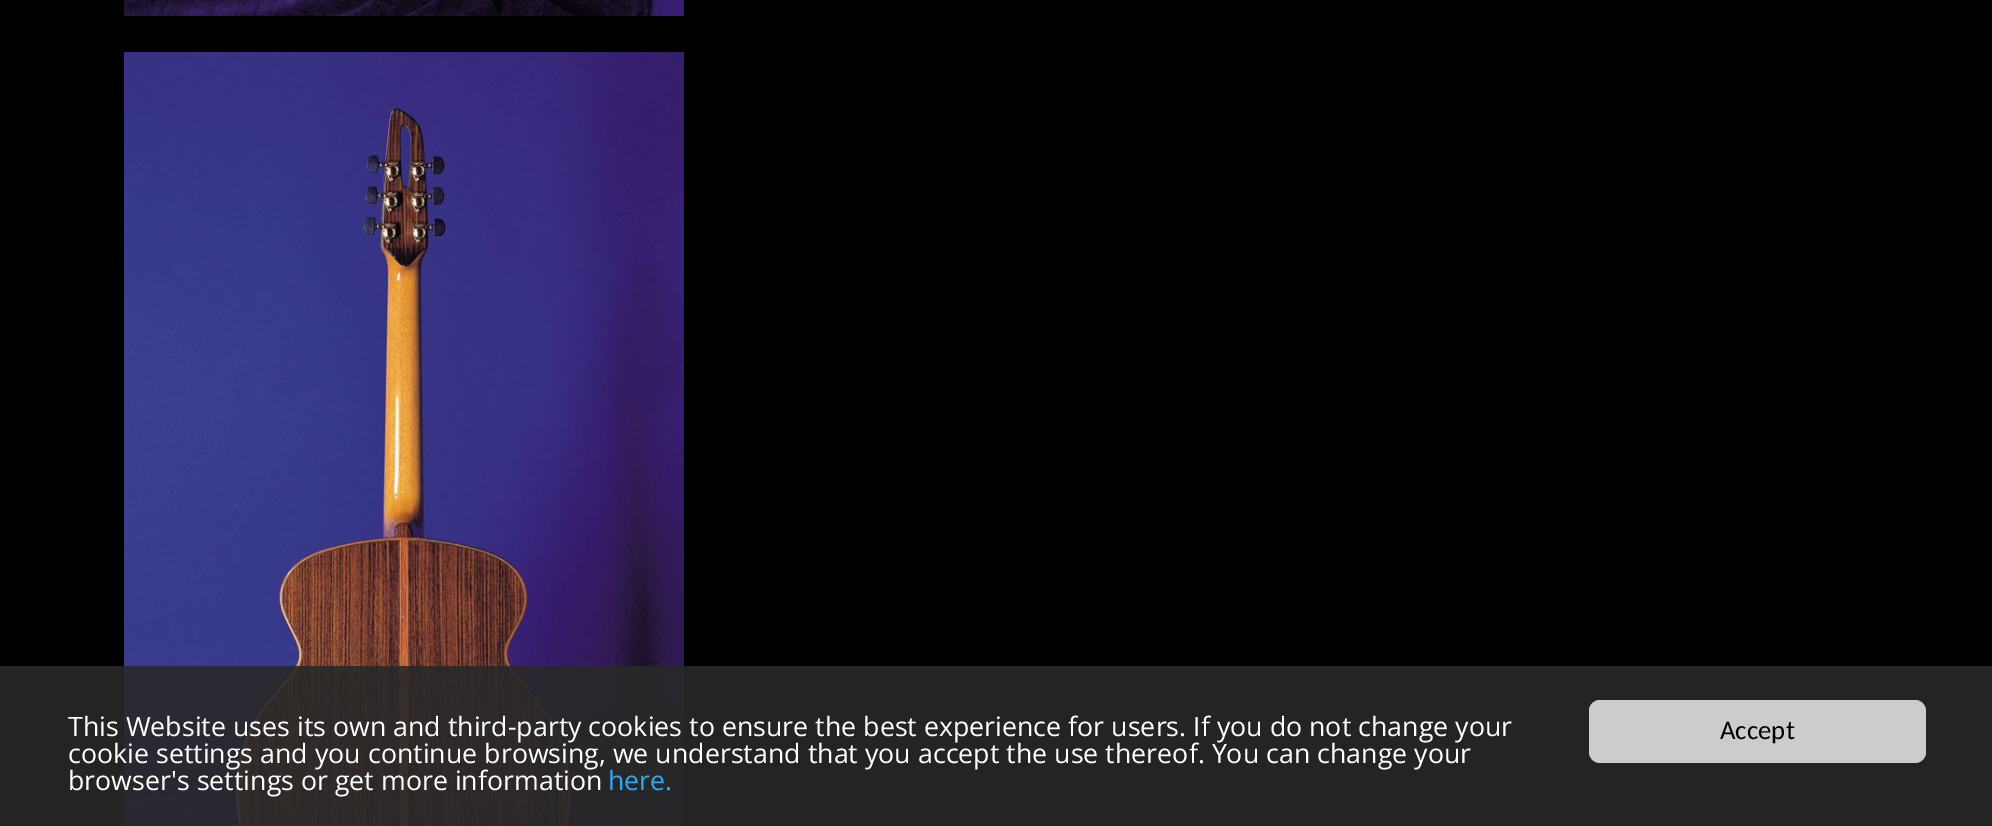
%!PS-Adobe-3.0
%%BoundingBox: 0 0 1992 826
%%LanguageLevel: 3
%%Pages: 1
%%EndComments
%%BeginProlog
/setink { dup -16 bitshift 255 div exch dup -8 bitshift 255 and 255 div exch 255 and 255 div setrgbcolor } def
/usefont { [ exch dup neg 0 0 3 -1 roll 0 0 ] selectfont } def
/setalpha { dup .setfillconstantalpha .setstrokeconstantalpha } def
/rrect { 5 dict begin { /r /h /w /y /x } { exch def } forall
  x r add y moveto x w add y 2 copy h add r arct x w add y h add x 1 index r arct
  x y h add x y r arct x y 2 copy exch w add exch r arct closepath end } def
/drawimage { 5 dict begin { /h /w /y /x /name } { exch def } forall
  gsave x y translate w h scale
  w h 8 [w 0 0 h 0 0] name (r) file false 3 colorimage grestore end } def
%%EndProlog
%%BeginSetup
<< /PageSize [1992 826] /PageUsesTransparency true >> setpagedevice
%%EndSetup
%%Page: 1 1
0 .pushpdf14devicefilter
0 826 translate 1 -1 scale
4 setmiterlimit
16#000000 setink
0 0 1992 826 rectfill
(img1.raw) 124 0 560 16 drawimage
(img2.raw) 124 52 560 774 drawimage
0.9 setalpha
16#282828 setink
0 666 1992 160 rectfill
/OpenSans-Regular 26.78 usefont
1 setalpha
16#FFFFFF setink
[
    [(This Website uses its own and third-party cookies to ensure the best experience for users. If you do not change your) 68 736]
    [(cookie settings and you continue browsing, we understand that you accept the use thereof. You can change your) 68 763]
    [(browser's settings or get more information) 68 790]
] { aload pop moveto show } forall
16#31A8F0 setink
608 790 moveto (here.) show
16#CCCCCC setink
1589 700 337 63 11 rrect fill
/Carlito-Regular 26.78 usefont
16#000000 setink
1720 739 moveto (Accept) show
.poppdf14devicefilter showpage
%%EOF
